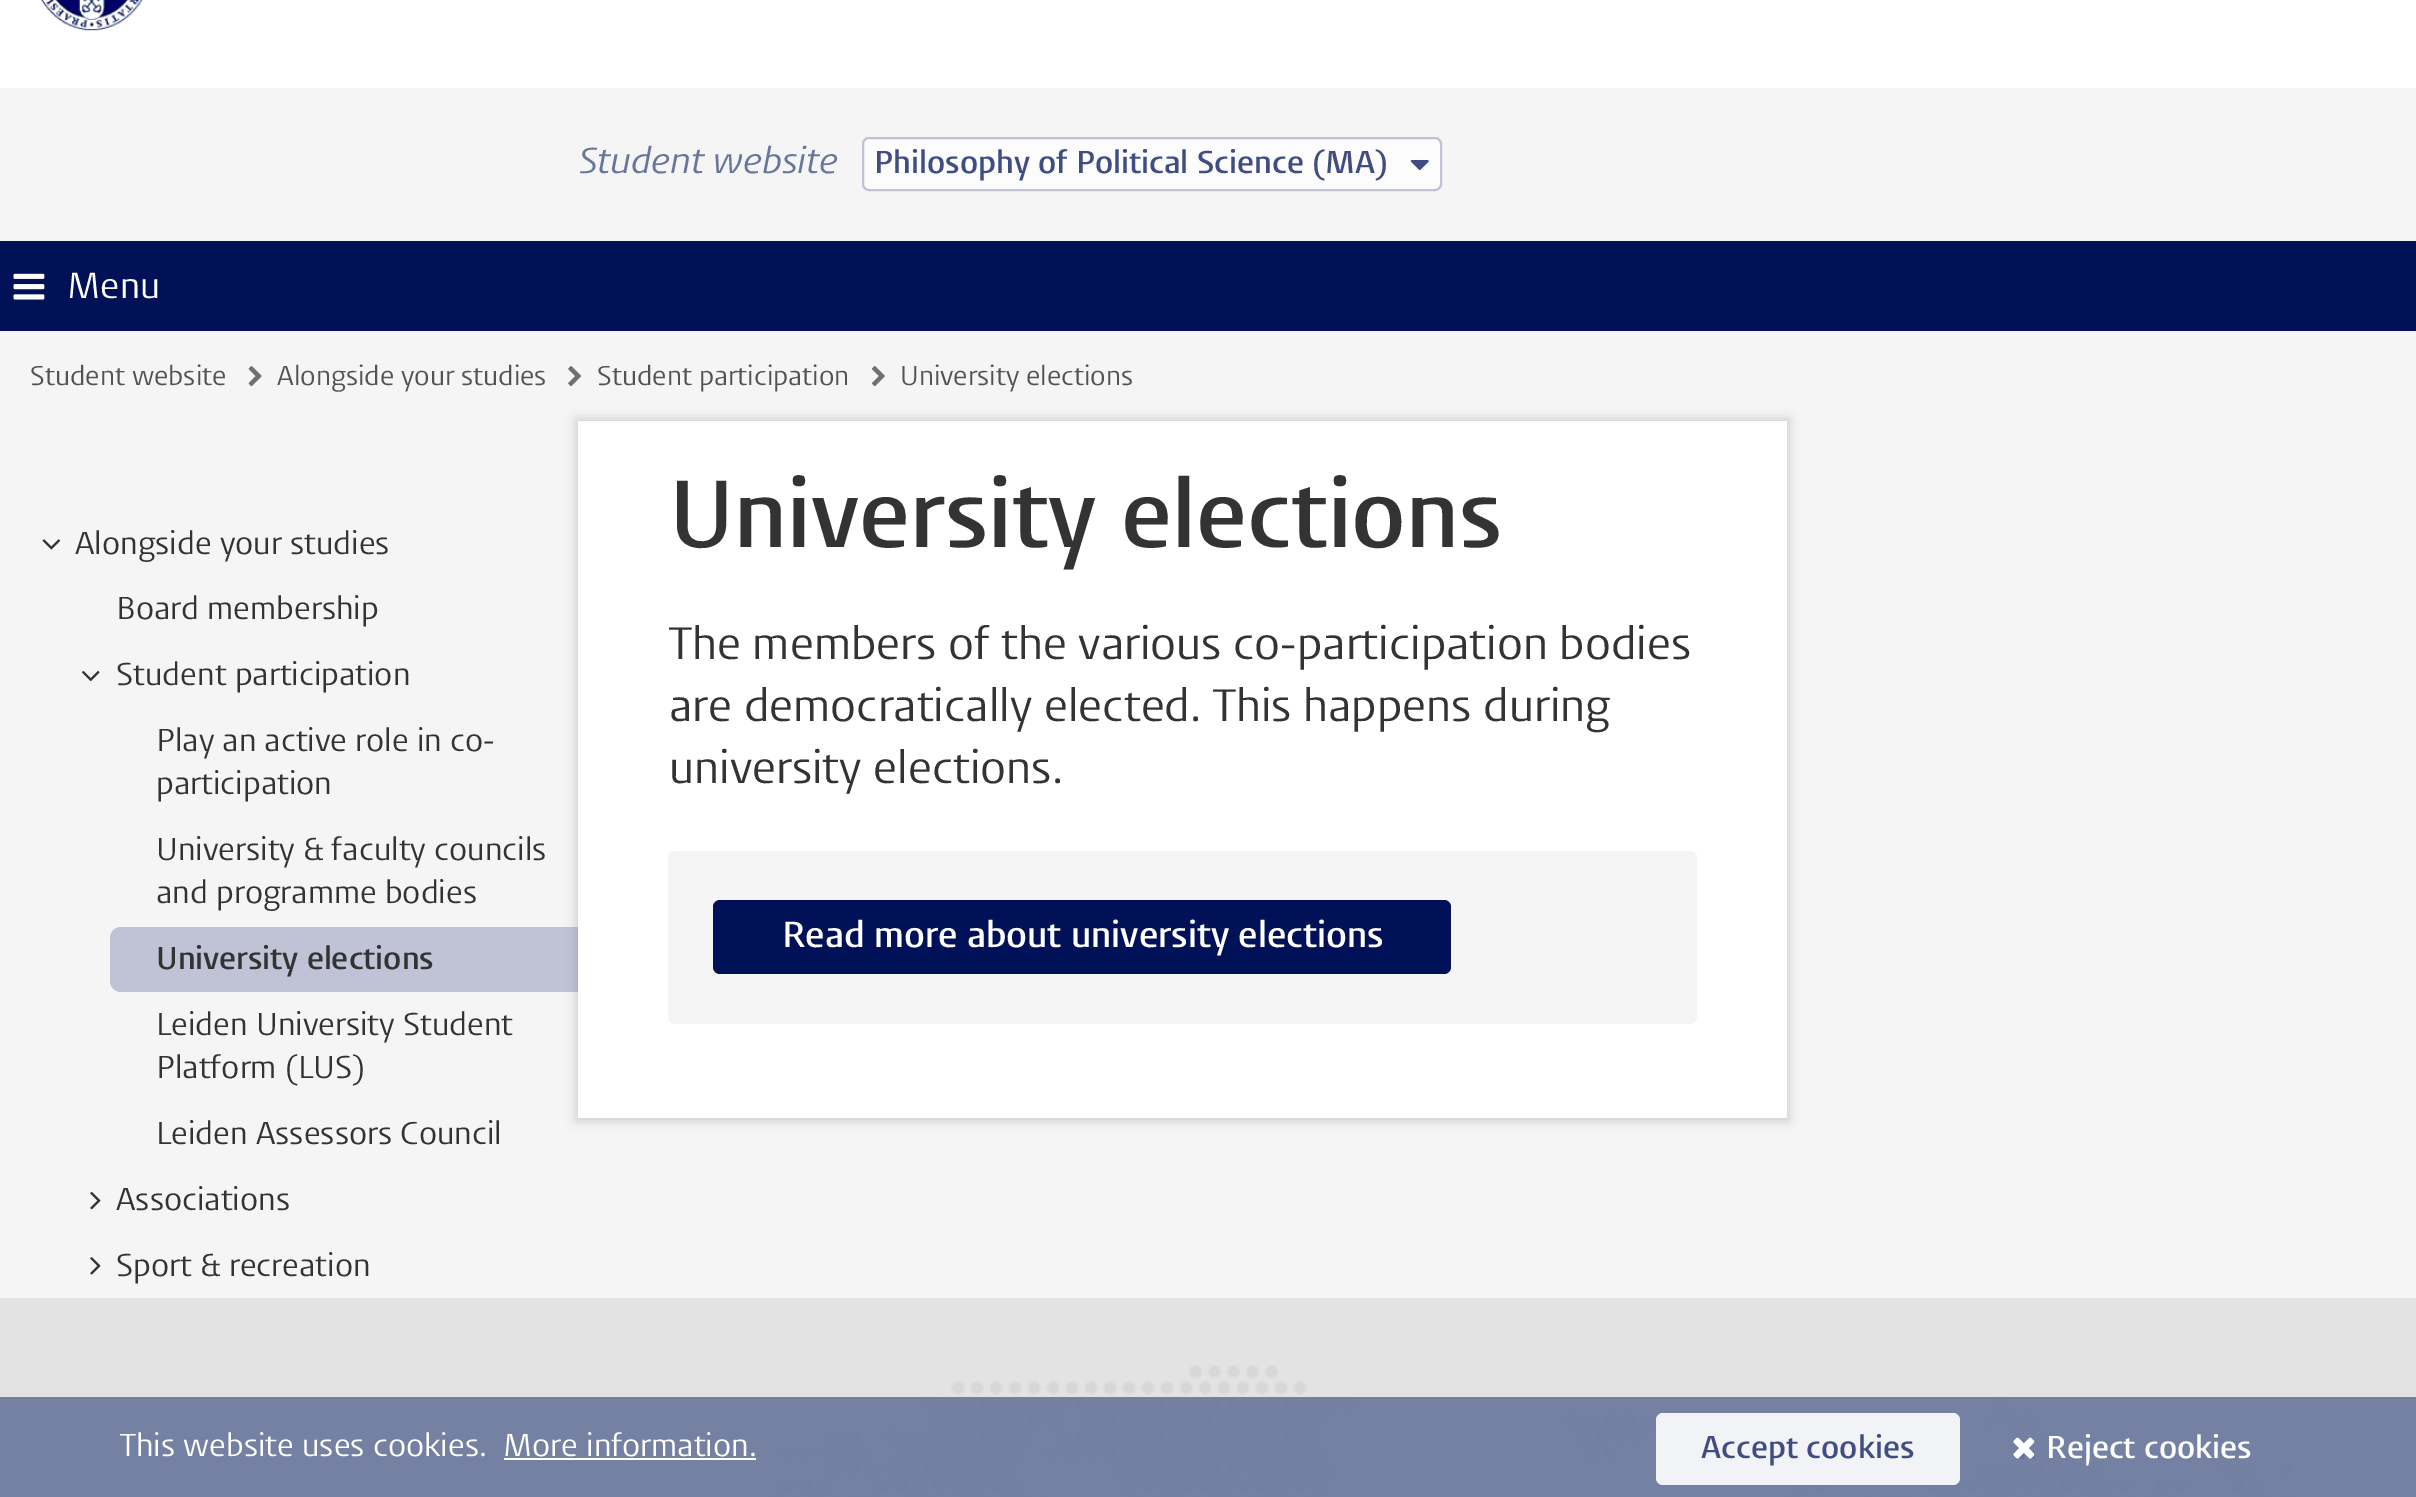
%!PS-Adobe-3.0
%%BoundingBox: 0 0 2416 1497
%%LanguageLevel: 3
%%Pages: 1
%%EndComments
%%BeginProlog
/setink { dup -16 bitshift 255 div exch dup -8 bitshift 255 and 255 div exch 255 and 255 div setrgbcolor } def
/usefont { [ exch dup neg 0 0 3 -1 roll 0 0 ] selectfont } def
/setalpha { dup .setfillconstantalpha .setstrokeconstantalpha } def
/rrect { 5 dict begin { /r /h /w /y /x } { exch def } forall
  x r add y moveto x w add y 2 copy h add r arct x w add y h add x 1 index r arct
  x y h add x y r arct x y 2 copy exch w add exch r arct closepath end } def
/softshadow { 12 dict begin { /a /b /q /h /w /y /x } { exch def } forall gsave /was 0 def
  9 -2 -9 { dup b mul 4 div /e exch def 1 sub .425 mul 2.718 exch exp 1 add a .99 .min exch div /now exch def
    1 1 now sub 1 was sub div sub setalpha /was now def
    w h .min e 2 mul add 0 gt { x e sub y e sub w e 2 mul add h e 2 mul add
      q e add b .6 mul add w h .min 2 div e add .min 0 .max rrect fill } if } for grestore end } def
/drawimage { 5 dict begin { /h /w /y /x /name } { exch def } forall
  gsave x y translate w h scale
  w h 8 [w 0 0 h 0 0] name (r) file false 3 colorimage grestore end } def
%%EndProlog
%%BeginSetup
<< /PageSize [2416 1497] /PageUsesTransparency true >> setpagedevice
%%EndSetup
%%Page: 1 1
0 .pushpdf14devicefilter
0 1497 translate 1 -1 scale
4 setmiterlimit
16#F5F5F5 setink
0 0 2416 1497 rectfill
16#FFFFFF setink
0 0 2416 88 rectfill
(img1.raw) 41 0 102 31 drawimage
/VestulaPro-Italic 36 usefont
16#68769C setink
579 173 moveto (Student website) show
16#FCFCFC setink
863 138 578 52 6 rrect gsave fill grestore
16#BFC3D5 setink
2 setlinewidth
stroke
/VestulaPro-SemiBold 31.5 usefont
16#404D82 setink
874 173 moveto (Philosophy of Political Science \(MA\)) show
(img2.raw) 1410 160 19 11 drawimage
16#001158 setink
0 241 2416 90 rectfill
(img3.raw) 13 273 32 27 drawimage
/VestulaPro-Regular 36 usefont
16#FFFFFF setink
67 298 moveto (Menu) show
/VestulaPro-Regular 27 usefont
16#535353 setink
30 385 moveto (Student website) show
(img4.raw) 248 366 14 21 drawimage
277 385 moveto (Alongside your studies) show
(img5.raw) 568 366 13 21 drawimage
597 385 moveto (Student participation) show
(img6.raw) 871 366 14 21 drawimage
900 385 moveto (University elections) show
(img7.raw) 42 539 19 11 drawimage
/VestulaPro-Regular 31.5 usefont
16#333333 setink
75 554 moveto (Alongside your studies) show
116 619 moveto (Board membership) show
(img8.raw) 82 670 18 12 drawimage
[
    [(Student participation) 116 685]
    [(Play an active role in co-) 156 751]
    [(participation) 156 794]
    [(University & faculty councils) 156 860]
    [(and programme bodies) 156 903]
] { aload pop moveto show } forall
16#BFC3D5 setink
121 927 moveto 578 927 lineto 578 992 lineto 121 992 lineto 115 992 110 987 110 981 curveto 110 938 lineto 110 932 115 927 121 927 curveto closepath fill
/VestulaPro-SemiBold 31.5 usefont
16#333333 setink
156 969 moveto (University elections) show
/VestulaPro-Regular 31.5 usefont
[
    [(Leiden University Student) 156 1035]
    [(Platform \(LUS\)) 156 1078]
    [(Leiden Assessors Council) 156 1144]
] { aload pop moveto show } forall
(img9.raw) 90 1191 11 19 drawimage
116 1210 moveto (Associations) show
(img10.raw) 90 1257 11 18 drawimage
116 1276 moveto (Sport & recreation) show
16#786E64 setink
576 419 1213 702 0 5.5 0.3 softshadow
16#FFFFFF setink
578 421 1209 697 rectfill
/VestulaPro-SemiBold 94.5 usefont
16#333333 setink
669 547 moveto (University elections) show
/VestulaPro-Regular 45 usefont
[
    [(The members of the various co-participation bodies) 669 659]
    [(are democratically elected. This happens during) 669 721]
    [(university elections.) 669 783]
] { aload pop moveto show } forall
16#F5F5F5 setink
668 851 1029 173 7 rrect fill
16#001158 setink
713 900 738 74 7 rrect fill
/VestulaPro-SemiBold 36 usefont
16#FFFFFF setink
782 947 moveto (Read more about university elections) show
16#E3E3E3 setink
0 1298 2416 199 rectfill
(img11.raw) 773 1365 1519 132 drawimage
0.9 setalpha
16#68769C setink
0 1397 2416 100 rectfill
/VestulaPro-Regular 31.5 usefont
1 setalpha
16#FFFFFF setink
120 1456 moveto (This website uses cookies.) show
503 1456 moveto (More information.) show
504 1458 252 2 rectfill
0.9 setalpha
1656 1413 304 72 7 rrect fill
/VestulaPro-SemiBold 31.5 usefont
1 setalpha
16#404D82 setink
1701 1458 moveto (Accept cookies) show
(img12.raw) 2013 1437 22 22 drawimage
16#FFFFFF setink
2046 1458 moveto (Reject cookies) show
.poppdf14devicefilter showpage
%%EOF
